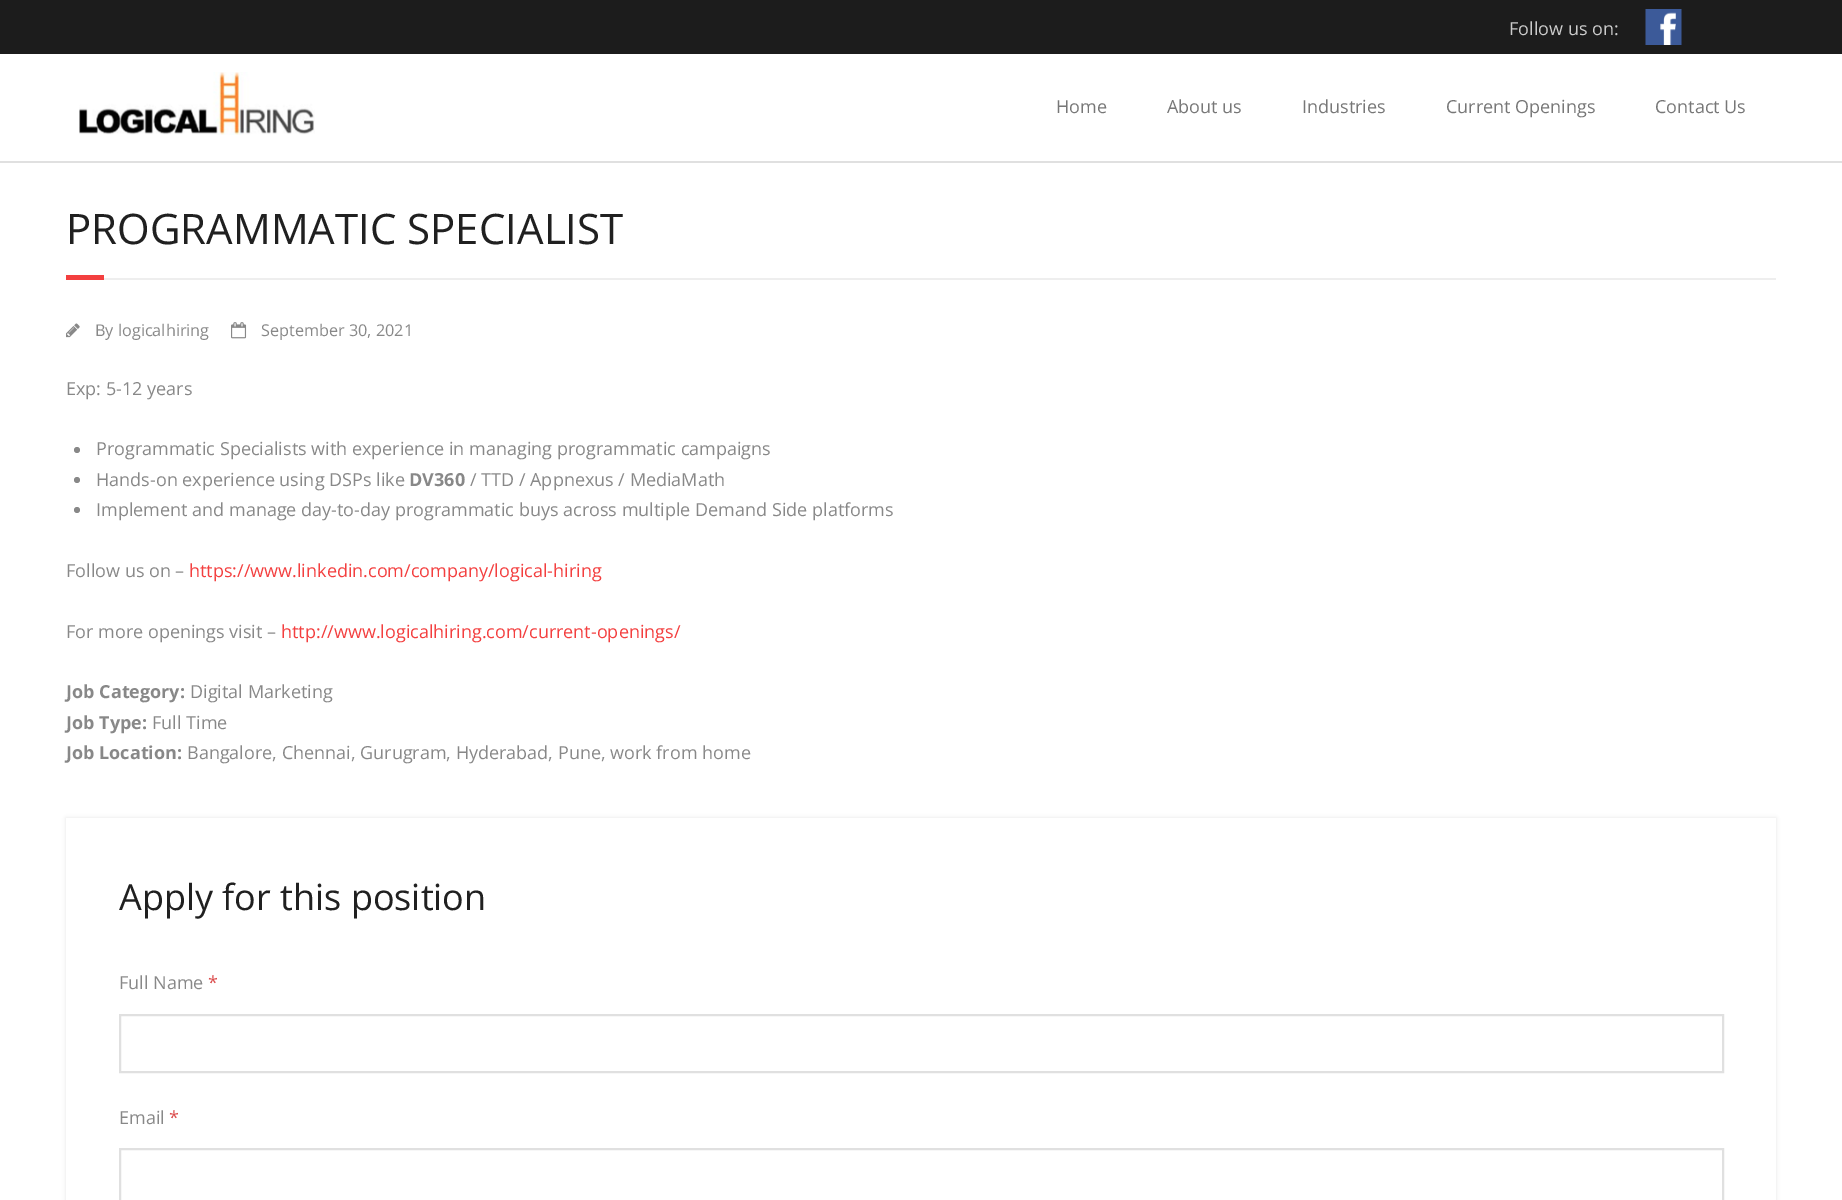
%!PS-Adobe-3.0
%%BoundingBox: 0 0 1842 1200
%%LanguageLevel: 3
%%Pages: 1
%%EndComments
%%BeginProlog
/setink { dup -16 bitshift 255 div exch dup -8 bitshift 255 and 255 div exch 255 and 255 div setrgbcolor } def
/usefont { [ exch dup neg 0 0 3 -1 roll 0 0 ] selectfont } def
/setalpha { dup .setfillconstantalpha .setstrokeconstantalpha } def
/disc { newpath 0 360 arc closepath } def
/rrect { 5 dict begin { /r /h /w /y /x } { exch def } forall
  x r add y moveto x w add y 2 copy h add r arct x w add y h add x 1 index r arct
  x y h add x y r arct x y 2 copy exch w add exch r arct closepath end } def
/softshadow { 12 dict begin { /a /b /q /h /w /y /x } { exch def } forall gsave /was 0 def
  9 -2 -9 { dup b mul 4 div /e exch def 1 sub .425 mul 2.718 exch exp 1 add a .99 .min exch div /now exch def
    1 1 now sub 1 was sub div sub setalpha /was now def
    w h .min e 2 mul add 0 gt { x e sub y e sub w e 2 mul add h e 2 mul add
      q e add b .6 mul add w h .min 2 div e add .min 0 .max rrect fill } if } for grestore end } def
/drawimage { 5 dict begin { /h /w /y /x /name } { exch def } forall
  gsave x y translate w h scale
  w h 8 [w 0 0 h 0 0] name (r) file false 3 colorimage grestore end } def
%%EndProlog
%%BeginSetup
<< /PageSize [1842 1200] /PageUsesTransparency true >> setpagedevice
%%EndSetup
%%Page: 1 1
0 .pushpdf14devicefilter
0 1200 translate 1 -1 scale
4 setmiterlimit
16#FFFFFF setink
0 0 1842 1200 rectfill
16#1C1C1C setink
0 0 1842 54 rectfill
/OpenSans-Regular 18 usefont
16#CCCCCC setink
1509 35 moveto (Follow us on:) show
(img1.raw) 1645 9 37 36 drawimage
16#E0E0E0 setink
0 161 1842 2 rectfill
(img2.raw) 79 72 236 63 drawimage
16#777777 setink
[
    [(Home) 1056 113]
    [(About us) 1167 113]
    [(Industries) 1302 113]
    [(Current Openings) 1446 113]
    [(Contact Us) 1655 113]
] { aload pop moveto show } forall
/OpenSans-Regular 42 usefont
16#202020 setink
66 244 moveto (PROGRAMMATIC SPECIALIST) show
16#F33F3F setink
66 275 38 5 rectfill
16#EEEEEE setink
104 278 1672 2 rectfill
(img3.raw) 66 323 14 15 drawimage
/OpenSans-Regular 16.25 usefont
16#888888 setink
95 336 moveto (By logicalhiring) show
(img4.raw) 231 322 16 17 drawimage
261 336 moveto (September 30, 2021) show
/OpenSans-Regular 18 usefont
66 395 moveto (Exp: 5-12 years) show
77 450 3 disc fill
96 455 moveto (Programmatic Specialists with experience in managing programmatic campaigns) show
77 480 3 disc fill
96 486 moveto (Hands-on experience using DSPs like) show
/OpenSans-Bold 18 usefont
409 486 moveto (DV360) show
/OpenSans-Regular 18 usefont
470 486 moveto (/ TTD / Appnexus / MediaMath) show
77 510 3 disc fill
96 516 moveto (Implement and manage day-to-day programmatic buys across multiple Demand Side platforms) show
66 577 moveto (Follow us on –) show
16#F33F3F setink
189 577 moveto (https://www.linkedin.com/company/logical-hiring) show
16#888888 setink
66 638 moveto (For more openings visit –) show
16#F33F3F setink
281 638 moveto (http://www.logicalhiring.com/current-openings/) show
/OpenSans-Bold 18 usefont
16#888888 setink
66 698 moveto (Job Category:) show
/OpenSans-Regular 18 usefont
190 698 moveto (Digital Marketing) show
/OpenSans-Bold 18 usefont
66 729 moveto (Job Type:) show
/OpenSans-Regular 18 usefont
152 729 moveto (Full Time) show
/OpenSans-Bold 18 usefont
66 759 moveto (Job Location:) show
/OpenSans-Regular 18 usefont
187 759 moveto (Bangalore, Chennai, Gurugram, Hyderabad, Pune, work from home) show
gsave
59 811 moveto 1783 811 lineto 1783 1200 lineto 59 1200 lineto closepath 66 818 moveto 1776 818 lineto 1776 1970 lineto 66 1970 lineto closepath eoclip newpath
16#000000 setink
66 818 1710 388 0 2 0.1 softshadow
grestore
/OpenSans-Regular 36 usefont
16#202020 setink
119 910 moveto (Apply for this position) show
/OpenSans-Regular 18 usefont
16#888888 setink
119 989 moveto (Full Name) show
16#DB4C4C setink
208 989 moveto (*) show
16#E0E0E0 setink
2 setlinewidth
120 1015 1603 57 rectstroke
16#888888 setink
119 1124 moveto (Email) show
16#DB4C4C setink
169 1124 moveto (*) show
16#E0E0E0 setink
120 1149 1603 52 rectstroke
.poppdf14devicefilter showpage
%%EOF
